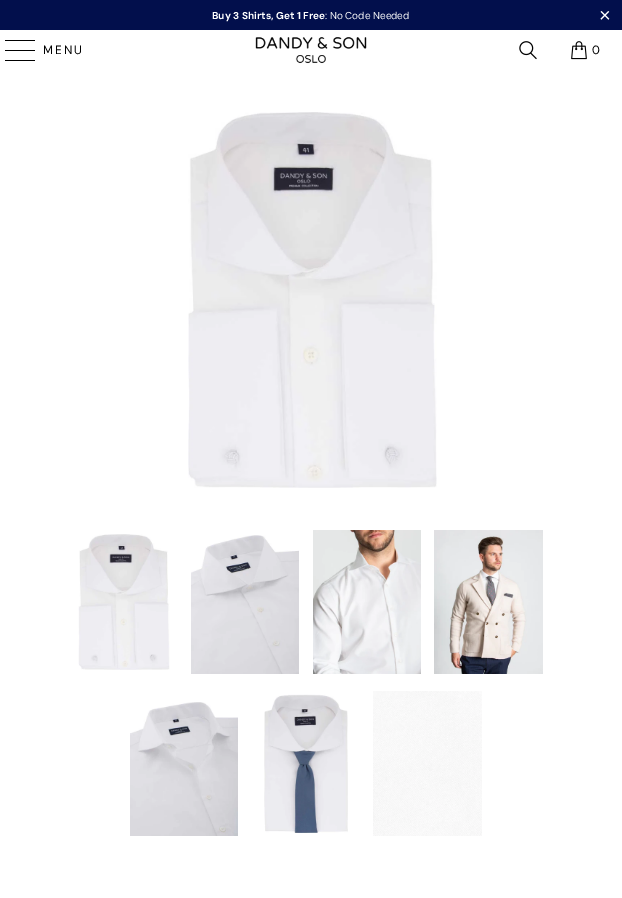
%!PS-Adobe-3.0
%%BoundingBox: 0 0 622 898
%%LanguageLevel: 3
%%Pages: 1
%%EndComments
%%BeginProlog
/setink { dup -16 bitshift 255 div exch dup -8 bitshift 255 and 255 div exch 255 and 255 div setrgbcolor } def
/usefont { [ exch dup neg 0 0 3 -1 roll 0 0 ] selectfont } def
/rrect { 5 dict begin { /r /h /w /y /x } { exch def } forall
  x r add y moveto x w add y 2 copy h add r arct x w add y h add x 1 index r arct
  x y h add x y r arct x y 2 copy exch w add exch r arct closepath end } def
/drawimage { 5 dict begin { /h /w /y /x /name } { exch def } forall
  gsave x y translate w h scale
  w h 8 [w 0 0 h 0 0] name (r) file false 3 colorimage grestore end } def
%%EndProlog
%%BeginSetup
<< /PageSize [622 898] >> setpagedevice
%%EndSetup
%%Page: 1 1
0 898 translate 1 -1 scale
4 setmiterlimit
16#FFFFFF setink
0 0 622 898 rectfill
16#020F4C setink
0 0 622 30 rectfill
/DMSans-Bold 10 usefont
16#FFFFFF setink
212 19 moveto (Buy 3 Shirts, Get 1 Free) show
/DMSans-Regular 10 usefont
325 19 moveto (: No Code Needed) show
/LiberationSans-Regular 20 usefont
599 22 moveto (×) show
16#000000 setink
5 40 30 1 0.5 rrect fill
5 50 30 1 0.5 rrect fill
5 60 30 1 0.5 rrect fill
/DMSans-Regular 12 usefont
43 54 moveto 2 0 (MENU) ashow
(img1.raw) 255 37 112 27 drawimage
(img2.raw) 519 41 18 19 drawimage
(img3.raw) 571 41 16 19 drawimage
592 54 moveto 2 0 (0) ashow
(img4.raw) 188 112 249 376 drawimage
(img5.raw) 78 534 92 136 drawimage
(img6.raw) 191 535 108 139 drawimage
(img7.raw) 313 530 108 144 drawimage
(img8.raw) 434 530 109 144 drawimage
(img9.raw) 130 702 108 134 drawimage
(img10.raw) 264 694 84 139 drawimage
(img11.raw) 373 691 109 145 drawimage
showpage
%%EOF
